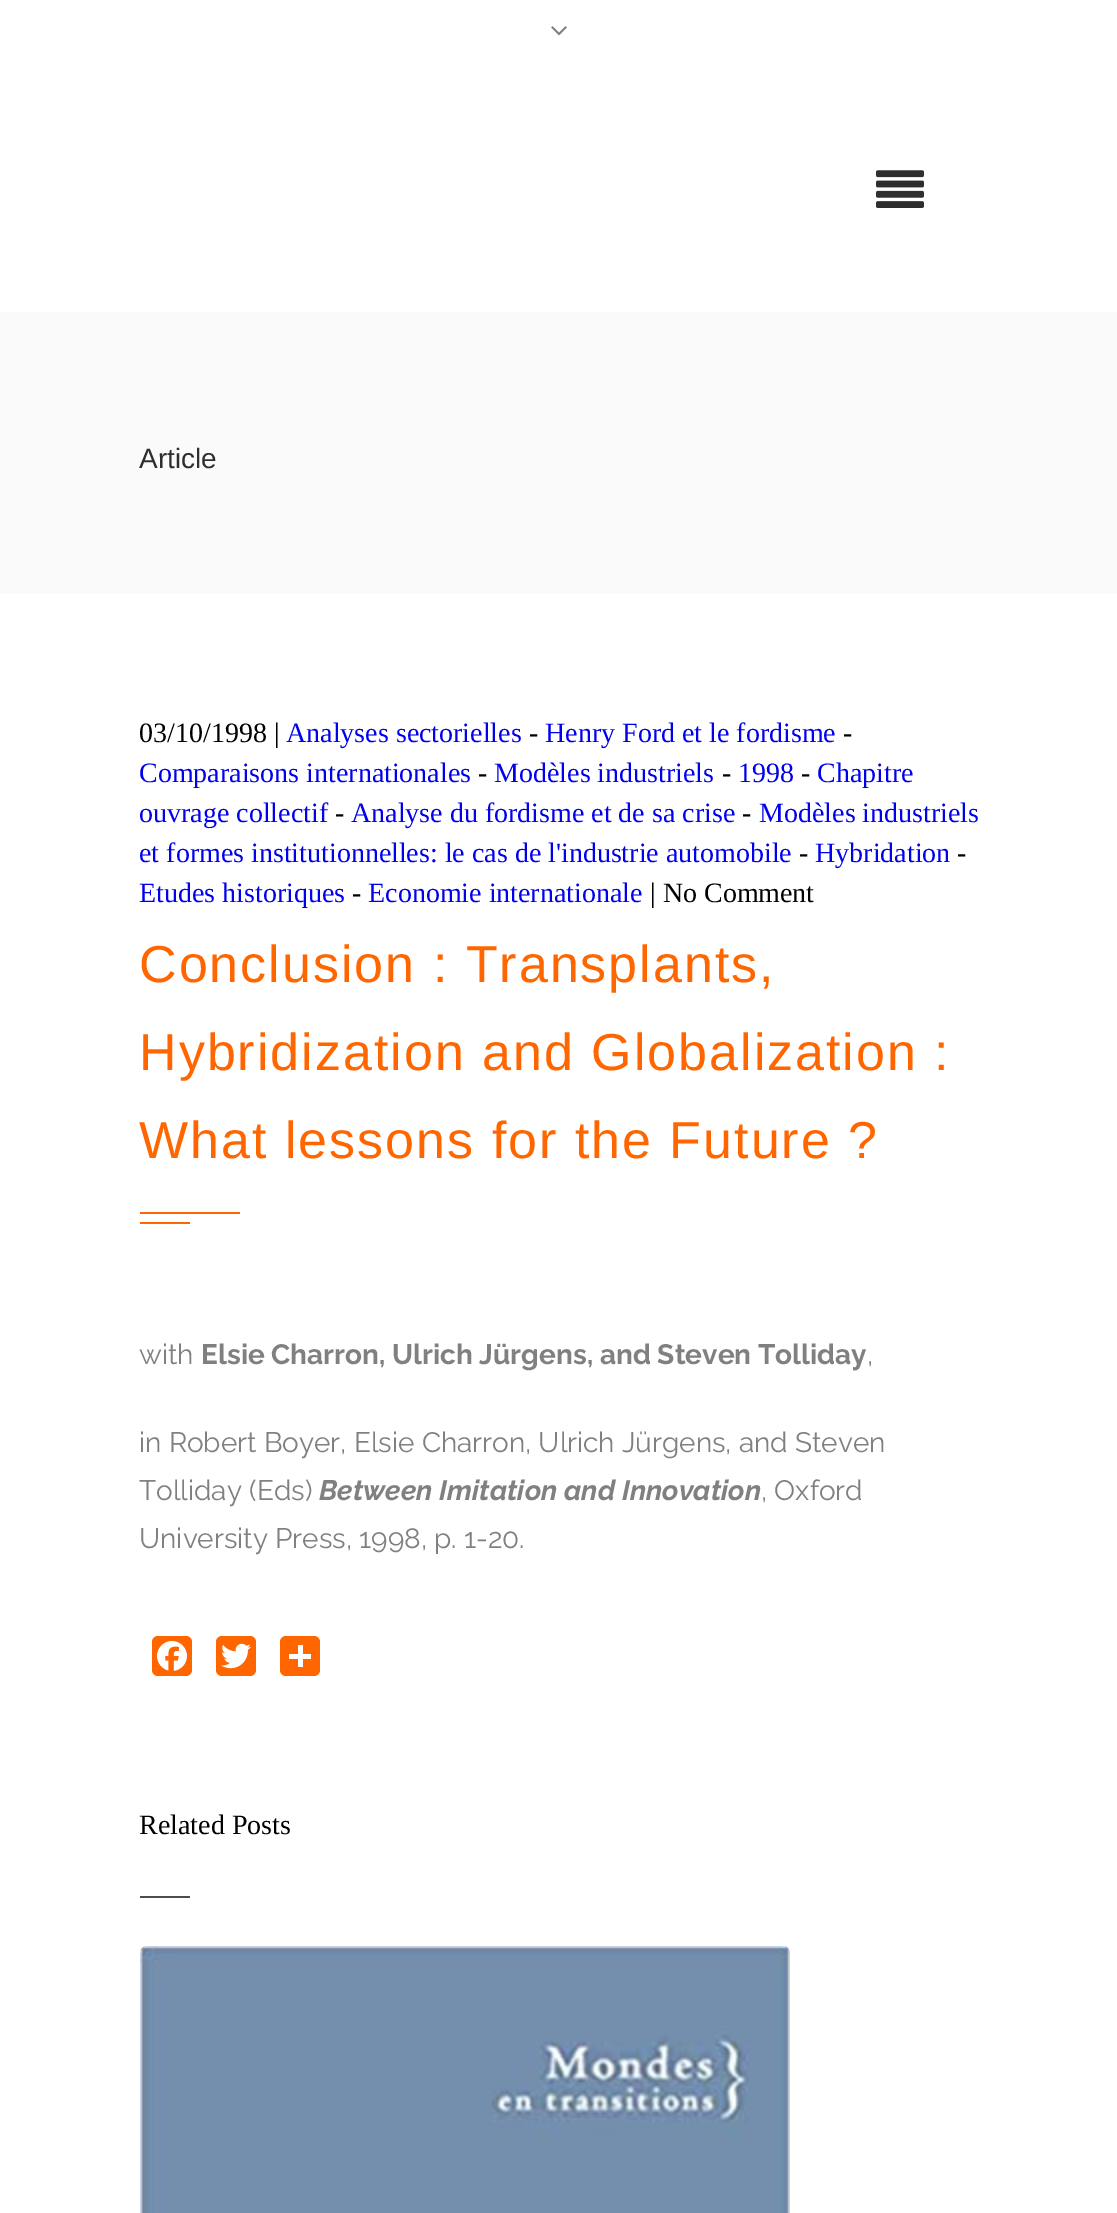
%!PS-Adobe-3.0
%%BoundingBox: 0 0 1117 2213
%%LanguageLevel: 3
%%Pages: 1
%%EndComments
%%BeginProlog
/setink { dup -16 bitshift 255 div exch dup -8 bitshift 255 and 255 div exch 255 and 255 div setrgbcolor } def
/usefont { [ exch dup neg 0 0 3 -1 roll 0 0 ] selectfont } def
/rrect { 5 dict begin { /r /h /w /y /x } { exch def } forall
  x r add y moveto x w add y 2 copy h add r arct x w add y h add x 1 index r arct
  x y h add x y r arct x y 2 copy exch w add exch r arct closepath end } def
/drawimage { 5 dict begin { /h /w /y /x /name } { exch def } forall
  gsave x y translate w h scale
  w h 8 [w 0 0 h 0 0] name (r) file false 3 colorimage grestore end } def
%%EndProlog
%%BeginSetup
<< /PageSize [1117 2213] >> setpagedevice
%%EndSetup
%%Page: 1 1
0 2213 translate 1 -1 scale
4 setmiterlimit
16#FFFFFF setink
0 0 1117 2213 rectfill
(img1.raw) 551 26 16 10 drawimage
(img2.raw) 876 170 48 38 drawimage
16#FAFAFA setink
0 312 1117 282 rectfill
/LiberationSans-Regular 28 usefont
16#2E2E2E setink
139 468 moveto (Article) show
/LiberationSerif-Regular 28 usefont
16#000000 setink
139 742 moveto (03/10/1998 |) show
16#0000EE setink
286 742 moveto (Analyses sectorielles) show
16#000000 setink
529 742 moveto (-) show
16#0000EE setink
545 742 moveto (Henry Ford et le fordisme) show
16#000000 setink
843 742 moveto (-) show
16#0000EE setink
139 782 moveto (Comparaisons internationales) show
16#000000 setink
478 782 moveto (-) show
16#0000EE setink
494 782 moveto (Modèles industriels) show
16#000000 setink
722 782 moveto (-) show
16#0000EE setink
738 782 moveto (1998) show
16#000000 setink
801 782 moveto (-) show
16#0000EE setink
817 782 moveto (Chapitre) show
139 822 moveto (ouvrage collectif) show
16#000000 setink
335 822 moveto (-) show
16#0000EE setink
351 822 moveto (Analyse du fordisme et de sa crise) show
16#000000 setink
742 822 moveto (-) show
16#0000EE setink
759 822 moveto (Modèles industriels) show
139 862 moveto (et formes institutionnelles: le cas de l'industrie automobile) show
16#000000 setink
799 862 moveto (-) show
16#0000EE setink
815 862 moveto (Hybridation) show
16#000000 setink
957 862 moveto (-) show
16#0000EE setink
139 902 moveto (Etudes historiques) show
16#000000 setink
352 902 moveto (-) show
16#0000EE setink
368 902 moveto (Economie internationale) show
16#000000 setink
650 902 moveto (| No Comment) show
/LiberationSans-Regular 52 usefont
16#FF6600 setink
139 982 moveto 2 0 (Conclusion : Transplants,) ashow
139 1070 moveto 2 0 (Hybridization and Globalization :) ashow
139 1158 moveto 2 0 (What lessons for the Future ?) ashow
140 1212 100 2 rectfill
140 1222 50 2 rectfill
/Raleway-Regular 28 usefont
16#808080 setink
139 1364 moveto (with) show
/Raleway-Bold 28 usefont
201 1364 moveto (Elsie Charron, Ulrich Jürgens, and Steven Tolliday) show
/Raleway-Regular 28 usefont
[
    [(,) 867 1364]
    [(in Robert Boyer, Elsie Charron, Ulrich Jürgens, and Steven) 139 1452]
    [(Tolliday \(Eds\)) 139 1500]
] { aload pop moveto show } forall
/Raleway-BoldItalic 28 usefont
319 1500 moveto (Between Imitation and Innovation) show
/Raleway-Regular 28 usefont
761 1500 moveto (, Oxford) show
139 1548 moveto (University Press, 1998, p. 1-20.) show
16#FF6600 setink
152 1636 40 40 6 rrect fill
(img3.raw) 157 1641 30 30 drawimage
216 1636 40 40 6 rrect fill
(img4.raw) 221 1643 30 26 drawimage
280 1636 40 40 6 rrect fill
16#FFFFFF setink
298 1645 5 22 rectfill
289 1654 22 5 rectfill
/LiberationSerif-Regular 28 usefont
16#000000 setink
139 1834 moveto (Related Posts) show
16#4C4C4C setink
140 1896 50 2 rectfill
(img5.raw) 140 1946 650 267 drawimage
showpage
%%EOF
